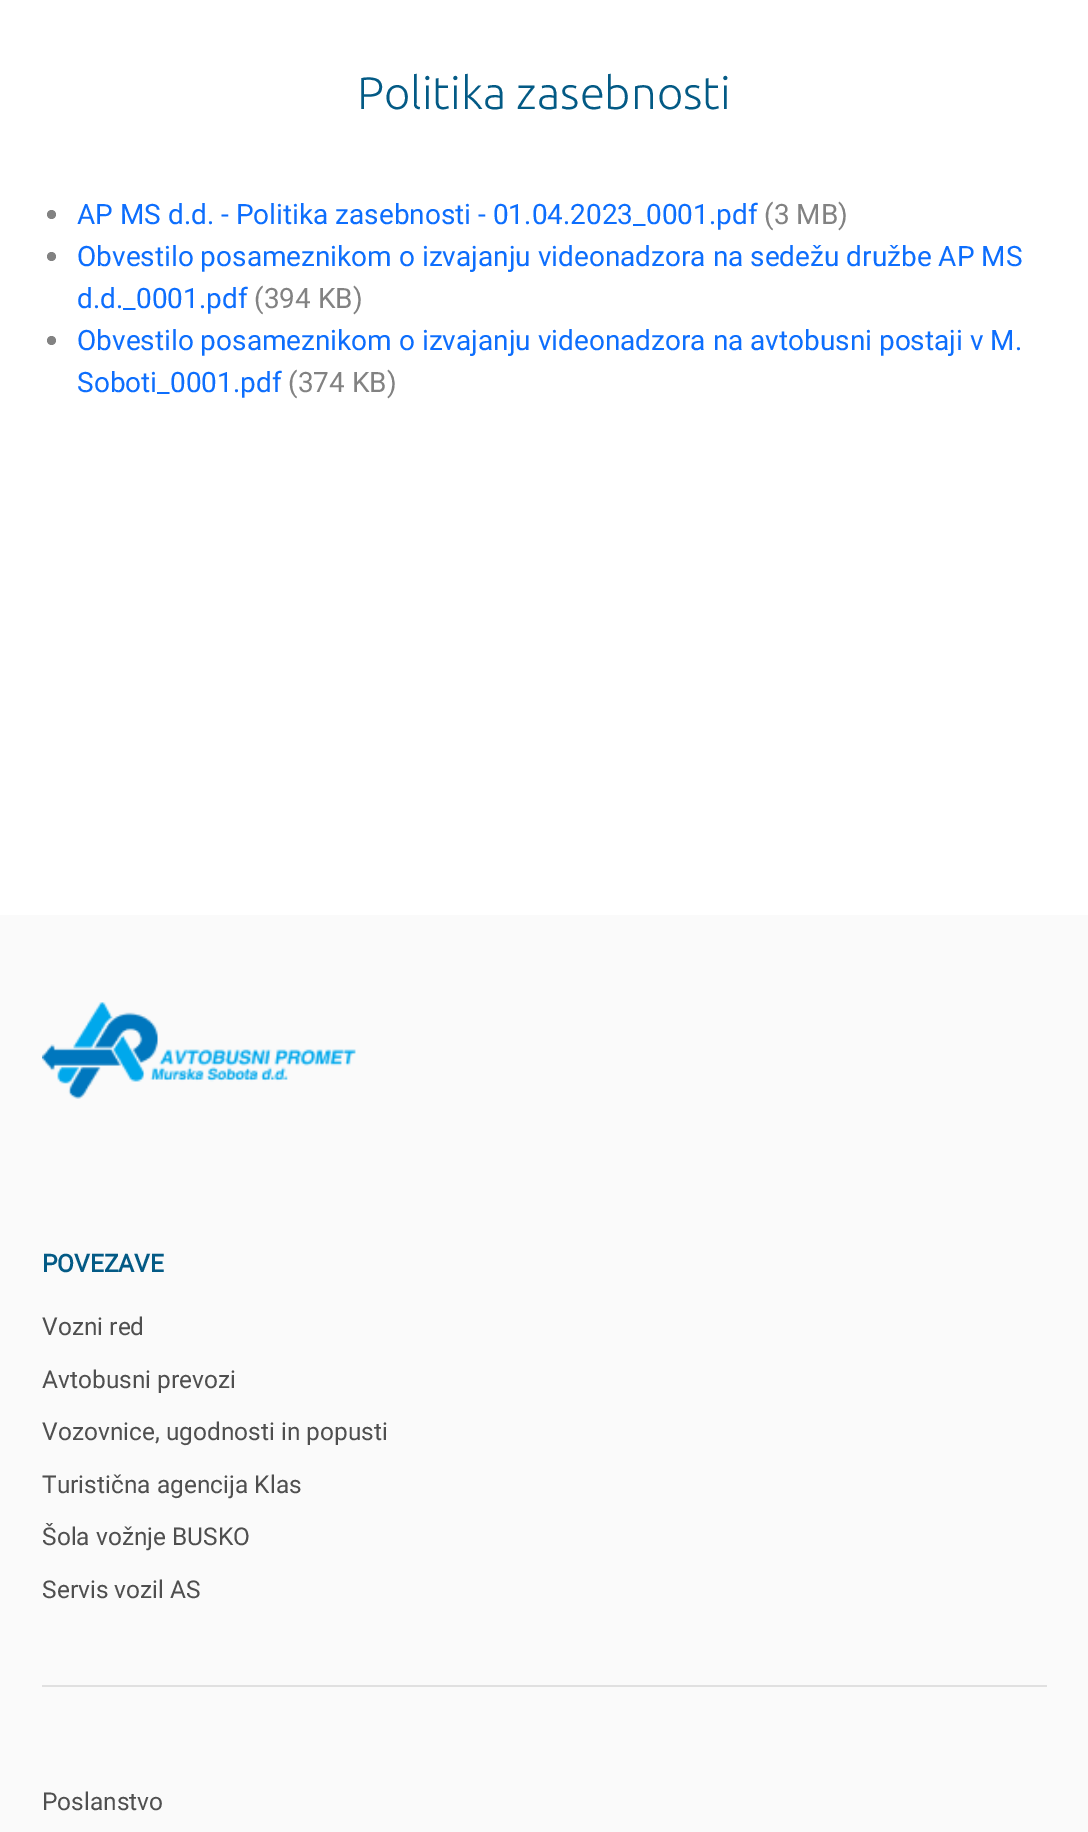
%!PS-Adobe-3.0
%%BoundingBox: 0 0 1088 1832
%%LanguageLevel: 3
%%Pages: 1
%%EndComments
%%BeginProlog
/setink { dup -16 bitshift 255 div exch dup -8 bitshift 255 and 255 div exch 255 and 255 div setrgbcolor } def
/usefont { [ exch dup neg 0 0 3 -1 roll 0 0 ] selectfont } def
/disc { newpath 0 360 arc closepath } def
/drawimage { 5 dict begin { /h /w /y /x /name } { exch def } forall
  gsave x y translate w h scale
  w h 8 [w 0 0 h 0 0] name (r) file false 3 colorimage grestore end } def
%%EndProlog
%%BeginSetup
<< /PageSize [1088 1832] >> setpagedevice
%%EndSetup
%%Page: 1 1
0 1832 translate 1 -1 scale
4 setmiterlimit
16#FFFFFF setink
0 0 1088 1832 rectfill
/Ubuntu-Light 45.5 usefont
16#035A85 setink
357 109 moveto (Politika zasebnosti) show
16#828282 setink
51.5 214.5 4.5 disc fill
/Roboto-Regular 28 usefont
16#0D6EFD setink
77 224 moveto (AP MS d.d. - Politika zasebnosti - 01.04.2023_0001.pdf) show
16#828282 setink
764 224 moveto (\(3 MB\)) show
51.5 256.5 4.5 disc fill
16#0D6EFD setink
77 266 moveto (Obvestilo posameznikom o izvajanju videonadzora na sedežu družbe AP MS) show
77 308 moveto (d.d._0001.pdf) show
16#828282 setink
254 308 moveto (\(394 KB\)) show
51.5 340.5 4.5 disc fill
16#0D6EFD setink
77 350 moveto (Obvestilo posameznikom o izvajanju videonadzora na avtobusni postaji v M.) show
77 392 moveto (Soboti_0001.pdf) show
16#828282 setink
288 392 moveto (\(374 KB\)) show
16#FAFAFA setink
0 915 1088 917 rectfill
(img1.raw) 42 1002 314 97 drawimage
/Roboto-Bold 24.5 usefont
16#035A85 setink
42 1272 moveto (POVEZAVE) show
/Roboto-Regular 24.5 usefont
16#4F4F4F setink
[
    [(Vozni red) 42 1335]
    [(Avtobusni prevozi) 42 1388]
    [(Vozovnice, ugodnosti in popusti) 42 1440]
    [(Turistična agencija Klas) 42 1493]
    [(Šola vožnje BUSKO) 42 1545]
    [(Servis vozil AS) 42 1598]
] { aload pop moveto show } forall
16#E0E0E0 setink
42 1685 1005 2 rectfill
16#4F4F4F setink
42 1810 moveto (Poslanstvo) show
showpage
%%EOF
